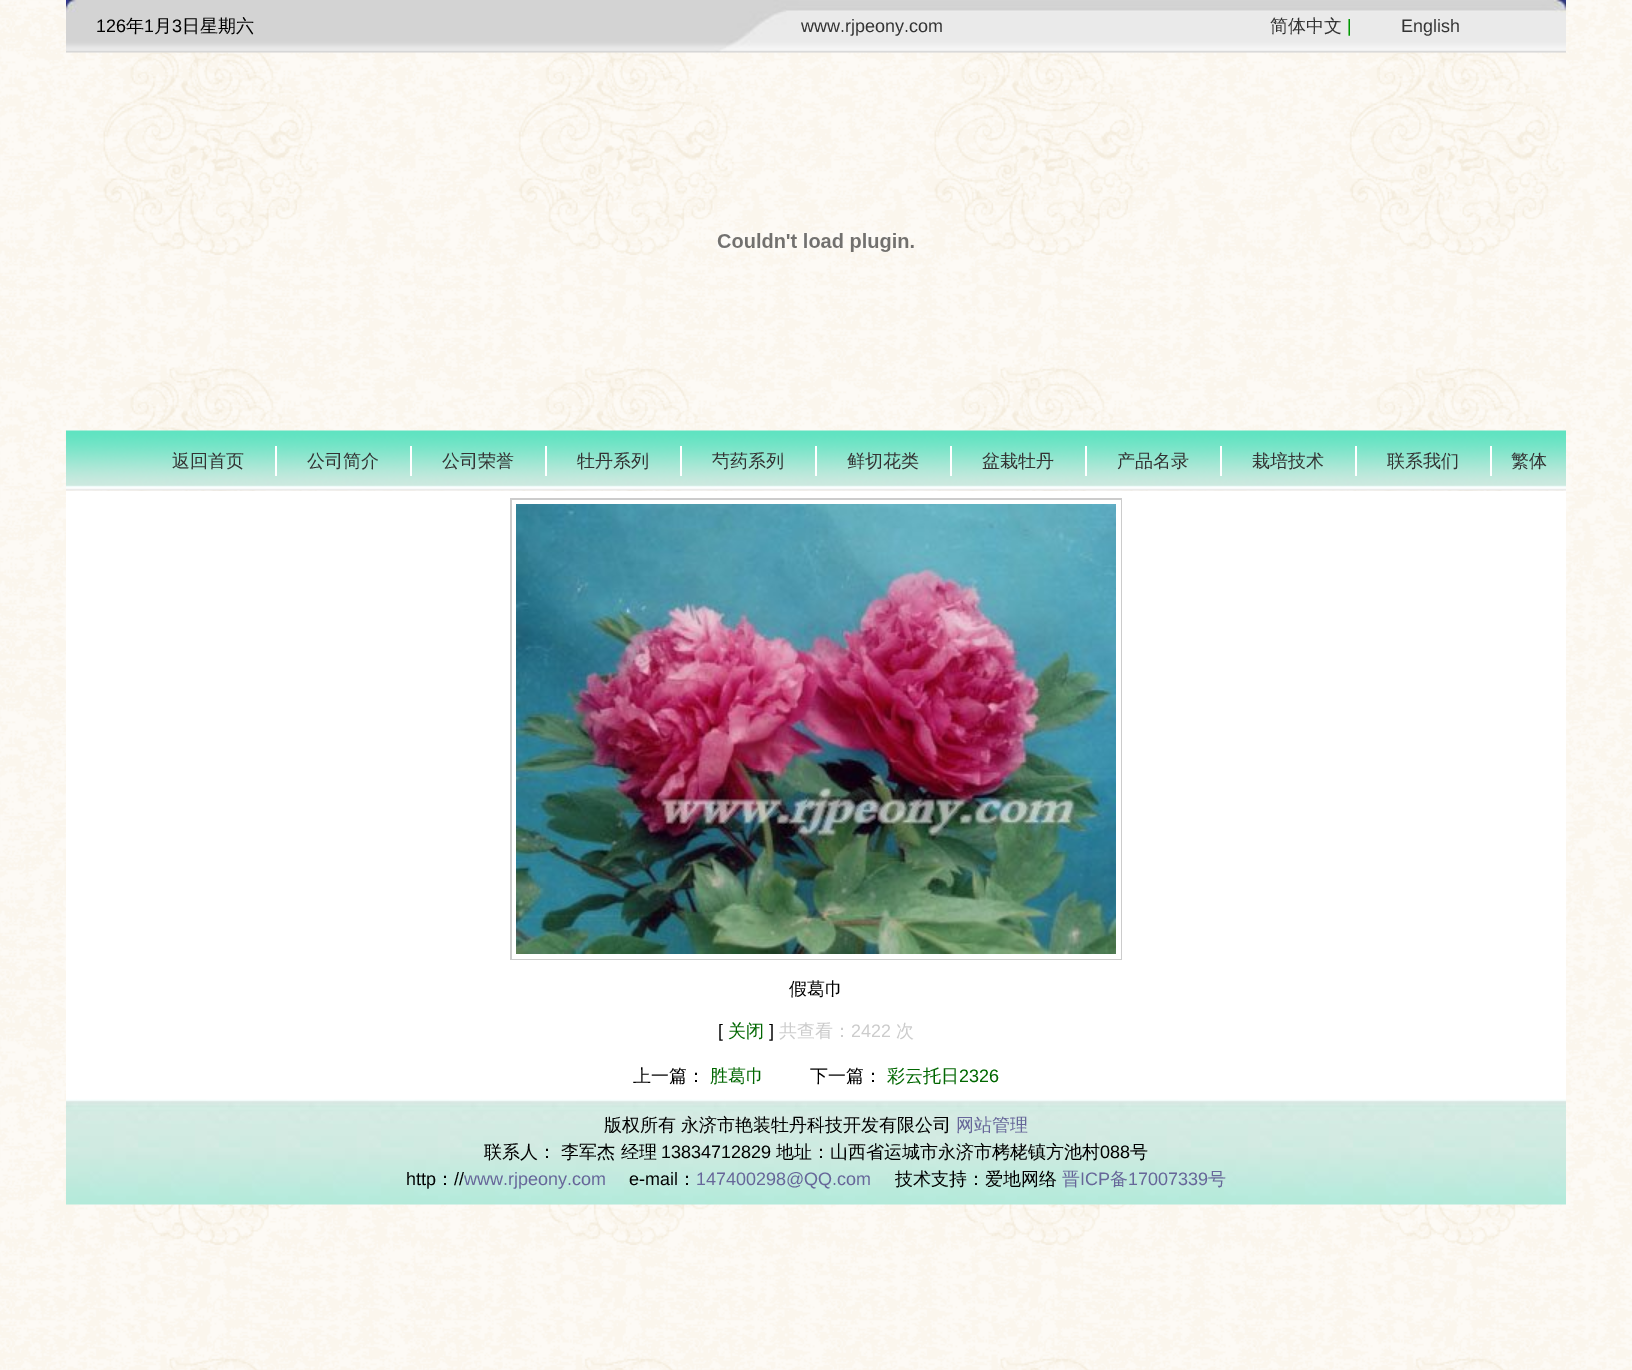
%!PS-Adobe-3.0
%%BoundingBox: 0 0 1632 1370
%%LanguageLevel: 3
%%Pages: 1
%%EndComments
%%BeginProlog
/setink { dup -16 bitshift 255 div exch dup -8 bitshift 255 and 255 div exch 255 and 255 div setrgbcolor } def
/usefont { [ exch dup neg 0 0 3 -1 roll 0 0 ] selectfont } def
/drawimage { 5 dict begin { /h /w /y /x /name } { exch def } forall
  gsave x y translate w h scale
  w h 8 [w 0 0 h 0 0] name (r) file false 3 colorimage grestore end } def
%%EndProlog
%%BeginSetup
<< /PageSize [1632 1370] >> setpagedevice
%%EndSetup
%%Page: 1 1
0 1370 translate 1 -1 scale
4 setmiterlimit
16#FFFFFF setink
0 0 1632 1370 rectfill
(img1.raw) 0 0 1632 1370 drawimage
(img2.raw) 66 0 1500 53 drawimage
/LiberationSans-Regular 18 usefont
16#000000 setink
96 32 moveto (126) show
/WenQuanYiZenHei-Medium 18 usefont
126 32 moveto (年) show
/LiberationSans-Regular 18 usefont
144 32 moveto (1) show
/WenQuanYiZenHei-Medium 18 usefont
154 32 moveto (月) show
/LiberationSans-Regular 18 usefont
172 32 moveto (3) show
/WenQuanYiZenHei-Medium 18 usefont
182 32 moveto (日星期六) show
/LiberationSans-Regular 18 usefont
16#333333 setink
801 32 moveto (www.rjpeony.com) show
/WenQuanYiZenHei-Medium 18 usefont
1270 32 moveto (简体中文) show
/LiberationSans-Regular 18 usefont
16#009900 setink
1347 32 moveto (|) show
16#333333 setink
1401 32 moveto (English) show
(img3.raw) 717 233 197 19 drawimage
(img4.raw) 66 430 1500 61 drawimage
16#FFFFFF setink
275 446 2 30 rectfill
/WenQuanYiZenHei-Medium 18 usefont
16#333333 setink
172 467 moveto (返回首页) show
16#FFFFFF setink
410 446 2 30 rectfill
16#333333 setink
307 467 moveto (公司简介) show
16#FFFFFF setink
545 446 2 30 rectfill
16#333333 setink
442 467 moveto (公司荣誉) show
16#FFFFFF setink
680 446 2 30 rectfill
16#333333 setink
577 467 moveto (牡丹系列) show
16#FFFFFF setink
815 446 2 30 rectfill
16#333333 setink
712 467 moveto (芍药系列) show
16#FFFFFF setink
950 446 2 30 rectfill
16#333333 setink
847 467 moveto (鲜切花类) show
16#FFFFFF setink
1085 446 2 30 rectfill
16#333333 setink
982 467 moveto (盆栽牡丹) show
16#FFFFFF setink
1220 446 2 30 rectfill
16#333333 setink
1117 467 moveto (产品名录) show
16#FFFFFF setink
1355 446 2 30 rectfill
16#333333 setink
1252 467 moveto (栽培技术) show
16#FFFFFF setink
1490 446 2 30 rectfill
16#333333 setink
1387 467 moveto (联系我们) show
1511 467 moveto (繁体) show
[
    [66 491 1500 609 16#FFFFFF]
    [510 498 612 462 16#CCCCCC]
    [512 500 609 459 16#FFFFFF]
] { aload pop setink rectfill } forall
(img5.raw) 516 504 600 450 drawimage
16#000000 setink
789 995 moveto (假葛巾) show
/LiberationSans-Regular 18 usefont
718 1037 moveto ([) show
/WenQuanYiZenHei-Medium 18 usefont
16#006600 setink
728 1037 moveto (关闭) show
/LiberationSans-Regular 18 usefont
16#000000 setink
769 1037 moveto (]) show
/WenQuanYiZenHei-Medium 18 usefont
16#CCCCCC setink
779 1037 moveto (共查看：) show
/LiberationSans-Regular 18 usefont
851 1037 moveto (2422) show
/WenQuanYiZenHei-Medium 18 usefont
896 1037 moveto (次) show
16#000000 setink
633 1082 moveto (上一篇：) show
16#006600 setink
710 1082 moveto (胜葛巾) show
16#000000 setink
810 1082 moveto (下一篇：) show
16#006600 setink
887 1082 moveto (彩云托日) show
/LiberationSans-Regular 18 usefont
959 1082 moveto (2326) show
(img6.raw) 66 1099 1500 106 drawimage
/WenQuanYiZenHei-Medium 18 usefont
16#000000 setink
604 1131 moveto (版权所有 永济市艳装牡丹科技开发有限公司) show
16#666699 setink
956 1131 moveto (网站管理) show
16#000000 setink
484 1158 moveto (联系人： 李军杰 经理) show
/LiberationSans-Regular 18 usefont
661 1158 moveto (13834712829) show
/WenQuanYiZenHei-Medium 18 usefont
776 1158 moveto (地址：山西省运城市永济市栲栳镇方池村) show
/LiberationSans-Regular 18 usefont
1100 1158 moveto (088) show
/WenQuanYiZenHei-Medium 18 usefont
1130 1158 moveto (号) show
/LiberationSans-Regular 18 usefont
406 1185 moveto (http) show
/WenQuanYiZenHei-Medium 18 usefont
436 1185 moveto (：) show
/LiberationSans-Regular 18 usefont
454 1185 moveto (//) show
16#666699 setink
464 1185 moveto (www.rjpeony.com) show
16#000000 setink
629 1185 moveto (e-mail) show
/WenQuanYiZenHei-Medium 18 usefont
678 1185 moveto (：) show
/LiberationSans-Regular 18 usefont
16#666699 setink
696 1185 moveto (147400298@QQ.com) show
/WenQuanYiZenHei-Medium 18 usefont
16#000000 setink
895 1185 moveto (技术支持：爱地网络) show
16#666699 setink
1062 1185 moveto (晋) show
/LiberationSans-Regular 18 usefont
1080 1185 moveto (ICP) show
/WenQuanYiZenHei-Medium 18 usefont
1110 1185 moveto (备) show
/LiberationSans-Regular 18 usefont
1128 1185 moveto (17007339) show
/WenQuanYiZenHei-Medium 18 usefont
1208 1185 moveto (号) show
showpage
%%EOF
